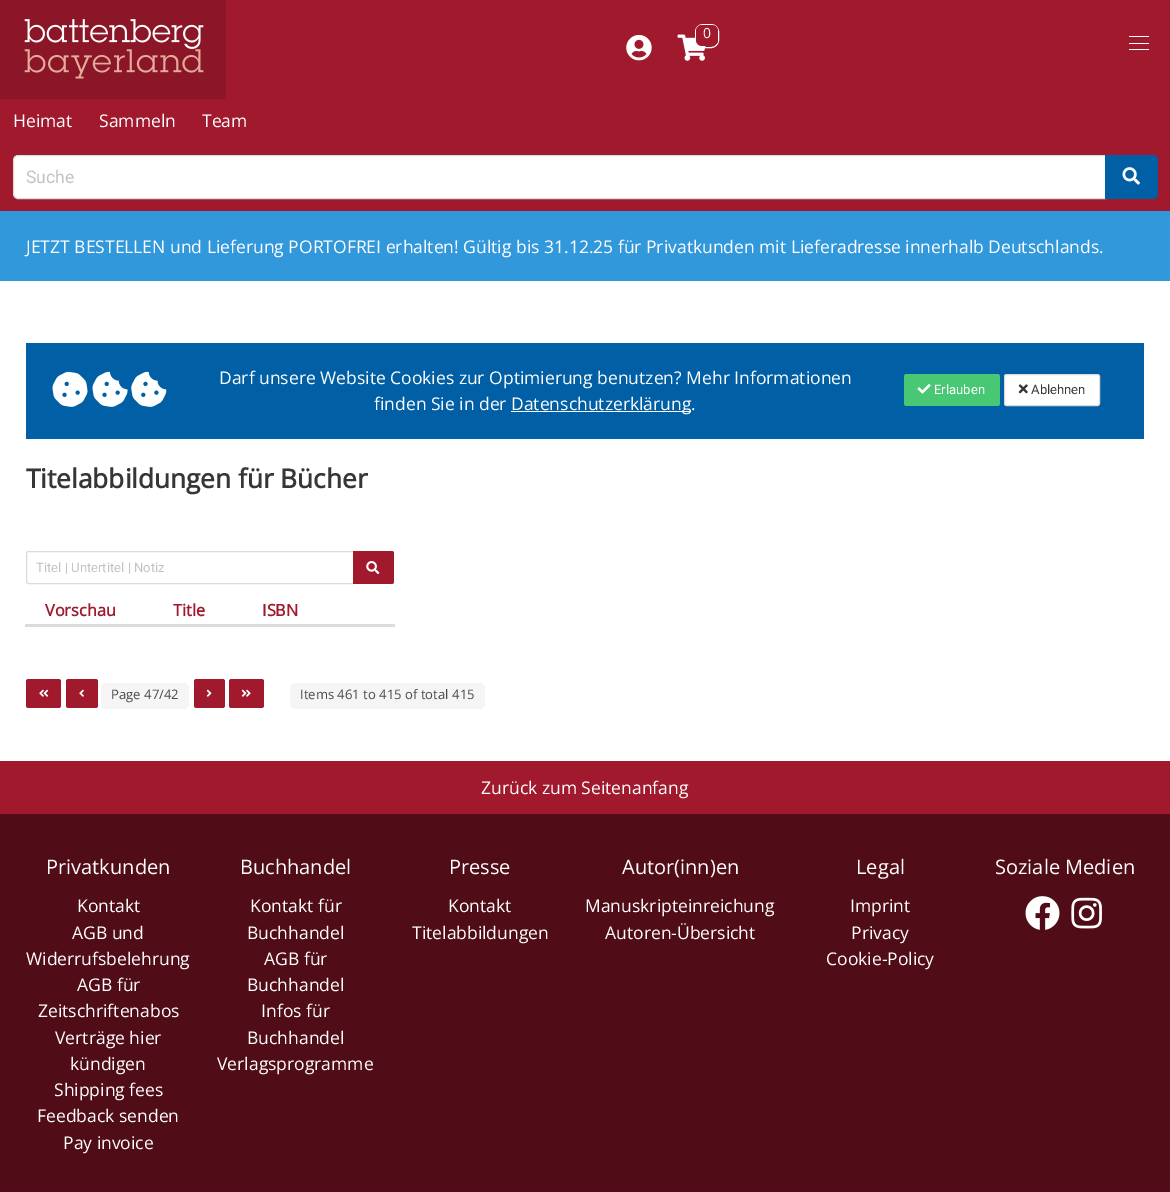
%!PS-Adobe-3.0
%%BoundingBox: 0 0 1170 1192
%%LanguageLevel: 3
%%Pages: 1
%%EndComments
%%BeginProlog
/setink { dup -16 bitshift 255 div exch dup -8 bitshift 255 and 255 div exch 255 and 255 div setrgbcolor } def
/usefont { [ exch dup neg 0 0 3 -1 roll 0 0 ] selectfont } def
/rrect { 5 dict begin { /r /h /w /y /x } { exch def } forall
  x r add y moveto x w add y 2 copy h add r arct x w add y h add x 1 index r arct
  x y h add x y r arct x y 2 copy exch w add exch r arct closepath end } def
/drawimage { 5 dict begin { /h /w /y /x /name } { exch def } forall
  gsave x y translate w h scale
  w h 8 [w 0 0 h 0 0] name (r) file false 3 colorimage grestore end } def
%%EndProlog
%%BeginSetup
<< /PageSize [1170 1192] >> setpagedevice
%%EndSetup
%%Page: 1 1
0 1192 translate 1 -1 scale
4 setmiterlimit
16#FFFFFF setink
0 0 1170 1192 rectfill
16#A0192D setink
0 0 1170 211 rectfill
16#8A1627 setink
0 0 226 99 rectfill
(img1.raw) 24 19 180 60 drawimage
(img2.raw) 677 34 29 27 drawimage
16#FFFFFF setink
695.5 24.5 23 23 7.5 rrect stroke
16#A0192D setink
696 25 22 21 6 rrect fill
/OpenSans-Regular 14 usefont
16#FFFFFF setink
703 38 moveto (0) show
(img3.raw) 626 35 26 26 drawimage
[
    [1129 36 20 1 16#FFFFFF]
    [1129 43 20 1 16#FFFFFF]
    [1129 49 20 1 16#FFFFFF]
] { aload pop setink rectfill } forall
/OpenSans-Regular 17.5 usefont
[
    [(Heimat) 13 127]
    [(Sammeln) 99 127]
    [(Team) 202 127]
] { aload pop moveto show } forall
18 155.5 moveto 1105.5 155.5 lineto 1105.5 198.5 lineto 18 198.5 lineto 15.5 198.5 13.5 196.5 13.5 194 curveto 13.5 160 lineto 13.5 157.5 15.5 155.5 18 155.5 curveto closepath gsave fill grestore
16#DBDBDB setink
stroke
/Roboto-Regular 17.5 usefont
16#C3C3C3 setink
26 183 moveto (Suche) show
16#005FA5 setink
1105 155 moveto 1153 155 lineto 1156 155 1158 157 1158 160 curveto 1158 194 lineto 1158 197 1156 199 1153 199 curveto 1105 199 lineto closepath fill
(img4.raw) 1122 167 18 18 drawimage
16#3298DC setink
0 211 1170 70 rectfill
/OpenSans-Regular 17.5 usefont
16#FFFFFF setink
26 253 moveto (JETZT BESTELLEN und Lieferung PORTOFREI erhalten! Gültig bis 31.12.25 für Privatkunden mit Lieferadresse innerhalb Deutschlands.) show
16#005FA5 setink
26 343 1118 96 rectfill
(img5.raw) 52 371 36 36 drawimage
(img6.raw) 92 371 36 36 drawimage
(img7.raw) 131 371 36 36 drawimage
16#FFFFFF setink
219 384 moveto (Darf unsere Website Cookies zur Optimierung benutzen? Mehr Informationen) show
374 410 moveto (finden Sie in der) show
511 411 180 1 rectfill
511 410 moveto (Datenschutzerklärung.) show
16#48C774 setink
904 374 96 32 2.5 rrect fill
(img8.raw) 917 384 14 10 drawimage
/Roboto-Regular 13.1 usefont
16#FFFFFF setink
934 394 moveto (Erlauben) show
1004.5 374.5 95 31 2 rrect gsave fill grestore
16#DBDBDB setink
stroke
(img9.raw) 1018 384 10 10 drawimage
16#363636 setink
1031 394 moveto (Ablehnen) show
/OpenSans-Bold 26.25 usefont
26 488 moveto (Titelabbildungen für Bücher) show
16#DBDBDB setink
28.5 551.5 moveto 353.5 551.5 lineto 353.5 583.5 lineto 28.5 583.5 lineto 27.5 583.5 26.5 582.5 26.5 581.5 curveto 26.5 553.5 lineto 26.5 552.5 27.5 551.5 28.5 551.5 curveto closepath stroke
/Roboto-Regular 13.1 usefont
16#C3C3C3 setink
36 572 moveto (Titel | Untertitel | Notiz) show
16#A0192D setink
353 551 moveto 391.5 551 lineto 393 551 394 552 394 553.5 curveto 394 581.5 lineto 394 583 393 584 391.5 584 curveto 353 584 lineto closepath fill
(img10.raw) 366 561 14 14 drawimage
/OpenSans-Bold 16.25 usefont
[
    [(Vorschau) 45 616]
    [(Title) 173 616]
    [(ISBN) 262 616]
] { aload pop moveto show } forall
16#DBDBDB setink
25 624 370 3 rectfill
16#A0192D setink
26 679 35 29 2.5 rrect fill
(img11.raw) 39 689 10 8 drawimage
66 679 32 29 2.5 rrect fill
(img12.raw) 79 689 5 8 drawimage
16#F5F5F5 setink
101 683 88 26 5 rrect fill
/OpenSans-Regular 13.1 usefont
16#4A4A4A setink
111 699 moveto (Page 47/42) show
16#A0192D setink
194 679 31 29 2.5 rrect fill
(img13.raw) 206 689 6 8 drawimage
229 679 35 29 2.5 rrect fill
(img14.raw) 241 689 10 8 drawimage
16#F5F5F5 setink
290 683 195 26 5 rrect fill
16#4A4A4A setink
300 699 moveto (Items 461 to 415 of total 415) show
16#510D17 setink
0 814 1170 378 rectfill
16#A0192D setink
0 761 1170 53 rectfill
/OpenSans-Regular 17.5 usefont
16#FFFFFF setink
481 794 moveto (Zurück zum Seitenanfang) show
/OpenSans-Regular 20 usefont
46 874 moveto (Privatkunden) show
/OpenSans-Regular 17.5 usefont
[
    [(Kontakt) 77 912]
    [(AGB und) 72 939]
    [(Widerrufsbelehrung) 26 965]
    [(AGB für) 77 991]
    [(Zeitschriftenabos) 38 1017]
    [(Verträge hier) 55 1044]
    [(kündigen) 70 1070]
    [(Shipping fees) 54 1096]
    [(Feedback senden) 37 1122]
    [(Pay invoice) 63 1149]
] { aload pop moveto show } forall
/OpenSans-Regular 20 usefont
240 874 moveto (Buchhandel) show
/OpenSans-Regular 17.5 usefont
[
    [(Kontakt für) 250 912]
    [(Buchhandel) 247 939]
    [(AGB für) 264 965]
    [(Buchhandel) 247 991]
    [(Infos für) 261 1017]
    [(Buchhandel) 247 1044]
    [(Verlagsprogramme) 217 1070]
] { aload pop moveto show } forall
/OpenSans-Regular 20 usefont
449 874 moveto (Presse) show
/OpenSans-Regular 17.5 usefont
448 912 moveto (Kontakt) show
412 939 moveto (Titelabbildungen) show
/OpenSans-Regular 20 usefont
622 874 moveto (Autor\(inn\)en) show
/OpenSans-Regular 17.5 usefont
585 912 moveto (Manuskripteinreichung) show
605 939 moveto (Autoren-Übersicht) show
/OpenSans-Regular 20 usefont
856 874 moveto (Legal) show
/OpenSans-Regular 17.5 usefont
[
    [(Imprint) 850 912]
    [(Privacy) 851 939]
    [(Cookie-Policy) 826 965]
] { aload pop moveto show } forall
/OpenSans-Regular 20 usefont
995 874 moveto (Soziale Medien) show
(img15.raw) 1025 896 35 34 drawimage
(img16.raw) 1071 897 31 32 drawimage
showpage
%%EOF
